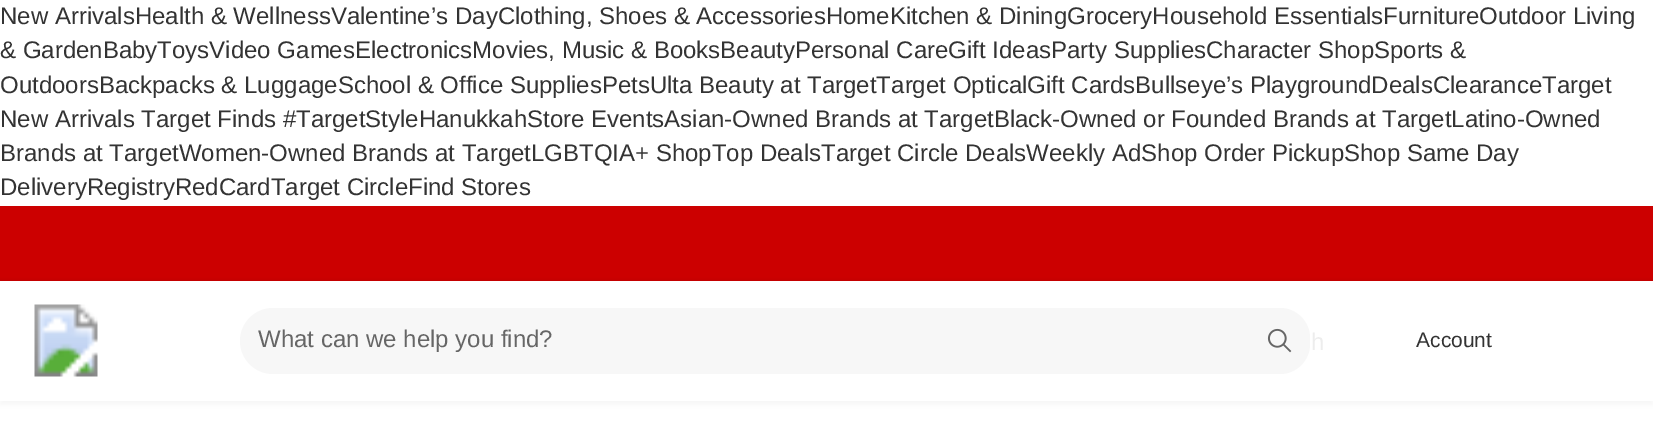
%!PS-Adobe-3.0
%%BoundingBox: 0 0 1653 438
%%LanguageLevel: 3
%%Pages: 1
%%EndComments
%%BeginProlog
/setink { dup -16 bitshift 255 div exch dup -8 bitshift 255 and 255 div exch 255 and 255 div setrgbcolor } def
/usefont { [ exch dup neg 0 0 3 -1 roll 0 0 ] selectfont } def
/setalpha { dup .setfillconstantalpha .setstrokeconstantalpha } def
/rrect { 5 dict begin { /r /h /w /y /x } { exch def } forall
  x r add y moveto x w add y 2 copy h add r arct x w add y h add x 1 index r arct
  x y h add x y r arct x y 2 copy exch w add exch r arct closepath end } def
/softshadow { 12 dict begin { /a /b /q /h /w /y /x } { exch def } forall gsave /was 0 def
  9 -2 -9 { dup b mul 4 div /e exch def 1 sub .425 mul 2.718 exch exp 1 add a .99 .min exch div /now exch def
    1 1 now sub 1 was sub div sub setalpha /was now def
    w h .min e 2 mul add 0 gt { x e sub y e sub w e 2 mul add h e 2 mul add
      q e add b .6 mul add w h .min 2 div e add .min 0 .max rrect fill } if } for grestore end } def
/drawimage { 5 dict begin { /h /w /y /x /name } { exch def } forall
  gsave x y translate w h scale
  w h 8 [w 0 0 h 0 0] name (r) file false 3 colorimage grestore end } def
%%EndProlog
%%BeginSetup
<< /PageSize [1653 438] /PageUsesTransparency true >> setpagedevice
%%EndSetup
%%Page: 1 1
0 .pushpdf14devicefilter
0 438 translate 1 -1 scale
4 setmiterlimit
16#FFFFFF setink
0 0 1653 438 rectfill
/LiberationSans-Regular 24 usefont
16#333333 setink
[
    [(New ArrivalsHealth & WellnessValentine’s DayClothing, Shoes & AccessoriesHomeKitchen & DiningGroceryHousehold EssentialsFurnitureOutdoor Living) 0 24]
    [(& GardenBabyToysVideo GamesElectronicsMovies, Music & BooksBeautyPersonal CareGift IdeasParty SuppliesCharacter ShopSports &) 0 58]
    [(OutdoorsBackpacks & LuggageSchool & Office SuppliesPetsUlta Beauty at TargetTarget OpticalGift CardsBullseye’s PlaygroundDealsClearanceTarget) 0 93]
    [(New Arrivals Target Finds #TargetStyleHanukkahStore EventsAsian-Owned Brands at TargetBlack-Owned or Founded Brands at TargetLatino-Owned) 0 127]
    [(Brands at TargetWomen-Owned Brands at TargetLGBTQIA+ ShopTop DealsTarget Circle DealsWeekly AdShop Order PickupShop Same Day) 0 161]
    [(DeliveryRegistryRedCardTarget CircleFind Stores) 0 195]
] { aload pop moveto show } forall
16#CC0000 setink
0 206 1653 75 rectfill
16#000000 setink
0 285 1653 120 0 3 0.04 softshadow
0 279 1653 120 0 1.5 0.04 softshadow
16#FFFFFF setink
0 281 1653 120 rectfill
(img1.raw) 34 304 64 73 drawimage
16#F7F7F7 setink
240 308 1070 66 33 rrect fill
16#666666 setink
258 347 moveto (What can we help you find?) show
16#F7F7F7 setink
1250 308 60 66 30 rrect fill
(img2.raw) 1267 328 25 25 drawimage
16#EDEDED setink
1311 350 moveto (h) show
/LiberationSans-Regular 21 usefont
16#333333 setink
1416 347 moveto (Account) show
.poppdf14devicefilter showpage
%%EOF
